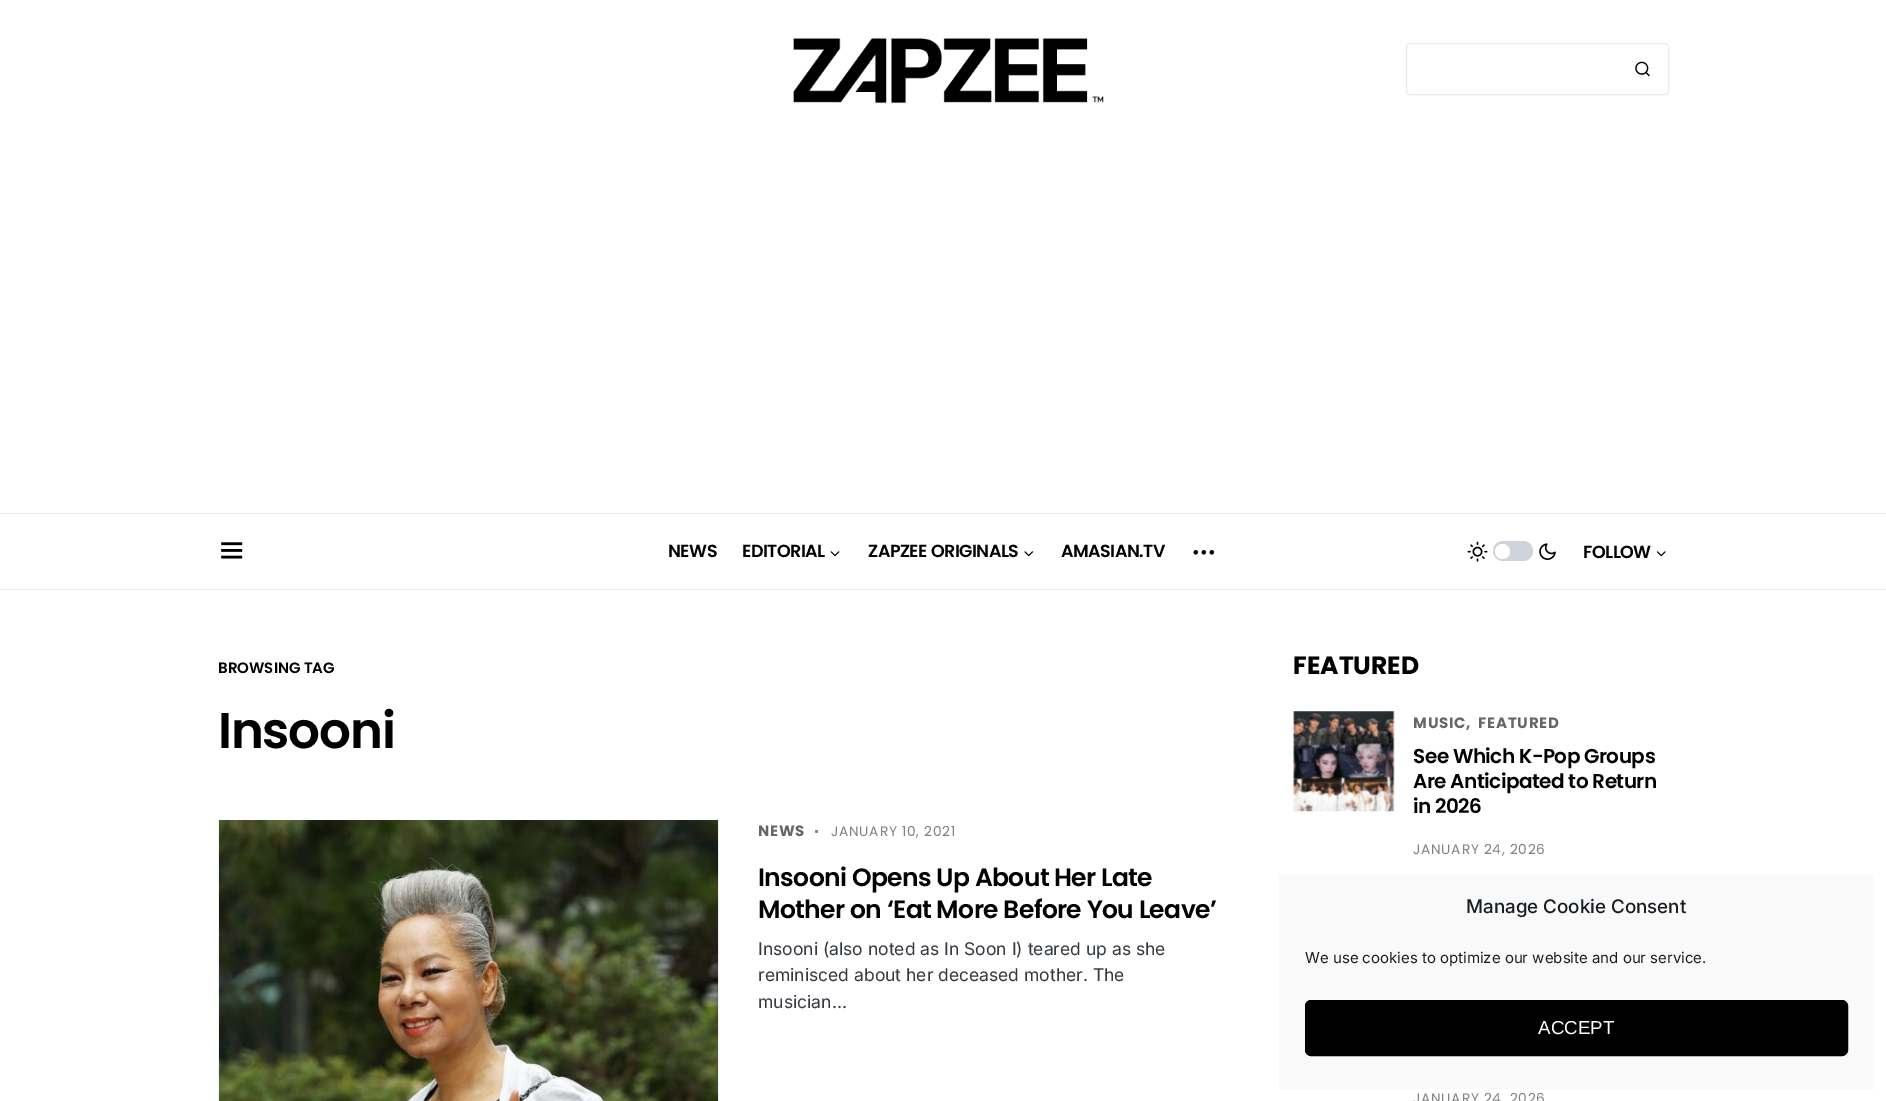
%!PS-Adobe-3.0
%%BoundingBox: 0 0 1886 1101
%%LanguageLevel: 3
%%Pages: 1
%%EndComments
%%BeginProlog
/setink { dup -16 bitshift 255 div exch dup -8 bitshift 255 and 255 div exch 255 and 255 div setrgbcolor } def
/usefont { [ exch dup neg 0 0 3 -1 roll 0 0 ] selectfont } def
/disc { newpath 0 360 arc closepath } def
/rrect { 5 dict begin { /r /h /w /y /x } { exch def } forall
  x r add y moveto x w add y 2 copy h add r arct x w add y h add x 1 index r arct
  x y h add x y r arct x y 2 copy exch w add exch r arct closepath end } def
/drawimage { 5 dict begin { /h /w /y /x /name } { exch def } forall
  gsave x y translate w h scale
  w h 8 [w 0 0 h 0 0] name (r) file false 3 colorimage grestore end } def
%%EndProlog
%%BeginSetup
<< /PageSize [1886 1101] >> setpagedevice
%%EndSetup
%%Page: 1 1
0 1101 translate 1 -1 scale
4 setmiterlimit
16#FFFFFF setink
0 0 1886 1101 rectfill
16#E9ECEF setink
0 513 1886 1 rectfill
(img1.raw) 793 38 311 66 drawimage
1406.5 43.5 262 51 3.5 rrect stroke
(img2.raw) 1635 61 15 16 drawimage
0 589 1886 1 rectfill
(img3.raw) 221 542 22 17 drawimage
/Poppins-SemiBold 17.5 usefont
16#000000 setink
668 557 moveto -0.5 0 (NEWS) ashow
742 557 moveto -0.5 0 (EDITORIAL) ashow
(img4.raw) 830 551 10 6 drawimage
868 557 moveto -0.5 0 (ZAPZEE ORIGINALS) ashow
(img5.raw) 1024 551 10 6 drawimage
1061 557 moveto -0.5 0 (AMASIAN.TV) ashow
(img6.raw) 1193 550 21 5 drawimage
(img7.raw) 1467 541 21 21 drawimage
16#CED4DA setink
1493 541 40 20 10 rrect fill
16#FFFFFF setink
1502.5 551.5 7.5 disc fill
(img8.raw) 1539 543 17 17 drawimage
16#000000 setink
1583 558 moveto -0.5 0 (FOLLOW) ashow
(img9.raw) 1656 551 10 6 drawimage
/Poppins-SemiBold 15 usefont
218 673 moveto (BROWSING TAG) show
/Poppins-SemiBold 50 usefont
218 748 moveto -1.25 0 (Insooni) ashow
(img10.raw) 218 820 501 281 drawimage
/Poppins-Bold 15 usefont
16#666666 setink
758 836 moveto 0.75 0 (NEWS) ashow
16#818181 setink
816.5 831.5 1.5 disc fill
/Poppins-Regular 13.75 usefont
831 836 moveto 0.75 0 (JANUARY 10, 2021) ashow
/Poppins-SemiBold 25 usefont
16#000000 setink
758 886 moveto -0.6 0 (Insooni Opens Up About Her Late) ashow
758 918 moveto -0.6 0 (Mother on ‘Eat More Before You Leave’) ashow
/Inter-Regular 17.5 usefont
16#343A40 setink
[
    [(Insooni \(also noted as In Soon I\) teared up as she) 758 955]
    [(reminisced about her deceased mother. The) 758 981]
    [(musician…) 758 1008]
] { aload pop moveto show } forall
/Poppins-Bold 25 usefont
16#000000 setink
1293 674 moveto (FEATURED) show
(img11.raw) 1293 711 102 101 drawimage
/Poppins-Bold 15 usefont
16#666666 setink
1413 728 moveto 0.75 0 (MUSIC) ashow
1466 728 moveto 0.75 0 (,) ashow
1478 728 moveto 0.75 0 (FEATURED) ashow
/Poppins-SemiBold 20 usefont
16#000000 setink
1413 763 moveto -0.5 0 (See Which K-Pop Groups) ashow
1413 788 moveto -0.5 0 (Are Anticipated to Return) ashow
1413 813 moveto -0.5 0 (in 2026) ashow
/Poppins-Regular 13.75 usefont
16#818181 setink
1413 854 moveto 0.75 0 (JANUARY 24, 2026) ashow
1413 1103 moveto 0.75 0 (JANUARY 24, 2026) ashow
16#F9F9F9 setink
1279 874 595 215 rectfill
/Inter-Medium 18.75 usefont
16#191E23 setink
1466 913 moveto (Manage Cookie Consent) show
/Inter-Regular 15 usefont
1305 963 moveto (We use cookies to optimize our website and our service.) show
16#000000 setink
1305.5 1000.5 542 55 5.5 rrect gsave fill grestore
stroke
/LiberationSans-Regular 18.75 usefont
16#FFFFFF setink
1538 1034 moveto (ACCEPT) show
showpage
%%EOF
